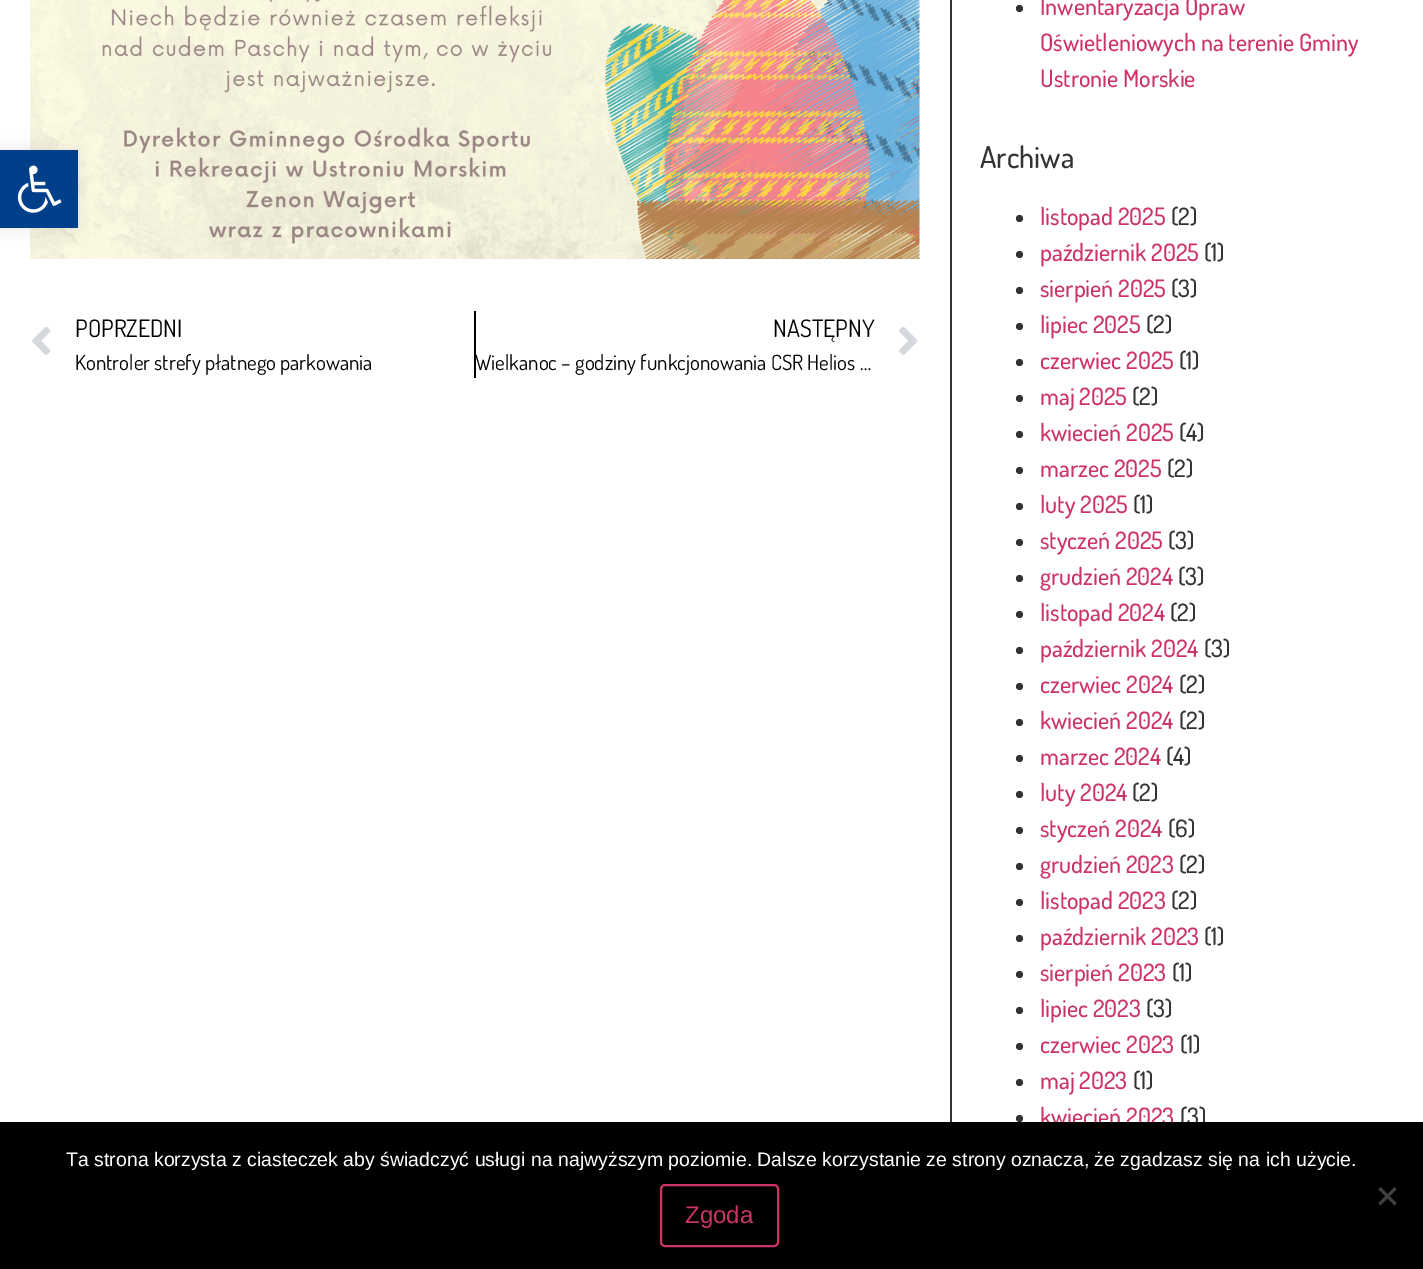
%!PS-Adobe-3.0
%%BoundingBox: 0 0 1423 1269
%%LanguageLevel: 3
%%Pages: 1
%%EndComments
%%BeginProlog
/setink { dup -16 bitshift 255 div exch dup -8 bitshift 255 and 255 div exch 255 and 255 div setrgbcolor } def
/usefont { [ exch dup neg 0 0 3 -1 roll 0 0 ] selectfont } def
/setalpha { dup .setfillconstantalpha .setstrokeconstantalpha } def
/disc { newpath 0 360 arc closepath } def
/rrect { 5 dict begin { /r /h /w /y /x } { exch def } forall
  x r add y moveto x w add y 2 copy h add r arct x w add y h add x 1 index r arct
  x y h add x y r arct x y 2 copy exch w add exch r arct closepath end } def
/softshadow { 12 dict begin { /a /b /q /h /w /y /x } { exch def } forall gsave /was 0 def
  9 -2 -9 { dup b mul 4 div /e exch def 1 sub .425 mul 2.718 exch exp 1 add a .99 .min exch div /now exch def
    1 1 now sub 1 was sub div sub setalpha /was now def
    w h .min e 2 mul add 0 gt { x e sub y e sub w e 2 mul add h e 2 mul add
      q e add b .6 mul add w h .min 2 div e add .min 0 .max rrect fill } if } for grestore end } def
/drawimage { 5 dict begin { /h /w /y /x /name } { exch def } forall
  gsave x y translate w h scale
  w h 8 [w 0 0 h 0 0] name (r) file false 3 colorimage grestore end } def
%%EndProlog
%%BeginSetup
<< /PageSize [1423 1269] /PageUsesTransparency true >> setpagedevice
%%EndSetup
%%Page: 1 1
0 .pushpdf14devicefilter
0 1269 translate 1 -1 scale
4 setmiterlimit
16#FFFFFF setink
0 0 1423 1269 rectfill
(img2.raw) 30 0 890 259 drawimage
16#000000 setink
0 150 78 78 0 7.5 0.1 softshadow
16#003F8A setink
0 150 78 78 rectfill
(img1.raw) 17 165 45 48 drawimage
(img3.raw) 32 326 19 29 drawimage
/Dosis-Regular 24 usefont
16#000000 setink
75 337 moveto (POPRZEDNI) show
/Dosis-Regular 21 usefont
75 370 moveto (Kontroler strefy płatnego parkowania) show
474 311 2 67 rectfill
/Dosis-Regular 24 usefont
773 337 moveto (NASTĘPNY) show
/Dosis-Regular 21 usefont
475 370 moveto (Wielkanoc – godziny funkcjonowania CSR Helios …) show
(img4.raw) 899 326 19 29 drawimage
16#333333 setink
950 0 2 1122 rectfill
1019.5 8.5 3.5 disc fill
/Dosis-Medium 24 usefont
16#CC3366 setink
[
    [(Inwentaryzacja Opraw) 1040 15]
    [(Oświetleniowych na terenie Gminy) 1040 51]
    [(Ustronie Morskie) 1040 87]
] { aload pop moveto show } forall
/Dosis-Medium 30 usefont
16#333333 setink
980 168 moveto (Archiwa) show
1019.5 218.5 3.5 disc fill
/Dosis-Medium 24 usefont
16#CC3366 setink
1040 225 moveto (listopad 2025) show
16#333333 setink
1171 225 moveto (\(2\)) show
1019.5 254.5 3.5 disc fill
16#CC3366 setink
1040 261 moveto (październik 2025) show
16#333333 setink
1204 261 moveto (\(1\)) show
1019.5 290.5 3.5 disc fill
16#CC3366 setink
1040 297 moveto (sierpień 2025) show
16#333333 setink
1171 297 moveto (\(3\)) show
1019.5 326.5 3.5 disc fill
16#CC3366 setink
1040 333 moveto (lipiec 2025) show
16#333333 setink
1146 333 moveto (\(2\)) show
1019.5 362.5 3.5 disc fill
16#CC3366 setink
1040 369 moveto (czerwiec 2025) show
16#333333 setink
1179 369 moveto (\(1\)) show
1019.5 398.5 3.5 disc fill
16#CC3366 setink
1040 405 moveto (maj 2025) show
16#333333 setink
1132 405 moveto (\(2\)) show
1019.5 434.5 3.5 disc fill
16#CC3366 setink
1040 441 moveto (kwiecień 2025) show
16#333333 setink
1179 441 moveto (\(4\)) show
1019.5 470.5 3.5 disc fill
16#CC3366 setink
1040 477 moveto (marzec 2025) show
16#333333 setink
1167 477 moveto (\(2\)) show
1019.5 506.5 3.5 disc fill
16#CC3366 setink
1040 513 moveto (luty 2025) show
16#333333 setink
1133 513 moveto (\(1\)) show
1019.5 542.5 3.5 disc fill
16#CC3366 setink
1040 549 moveto (styczeń 2025) show
16#333333 setink
1168 549 moveto (\(3\)) show
1019.5 578.5 3.5 disc fill
16#CC3366 setink
1040 585 moveto (grudzień 2024) show
16#333333 setink
1178 585 moveto (\(3\)) show
1019.5 614.5 3.5 disc fill
16#CC3366 setink
1040 621 moveto (listopad 2024) show
16#333333 setink
1170 621 moveto (\(2\)) show
1019.5 650.5 3.5 disc fill
16#CC3366 setink
1040 657 moveto (październik 2024) show
16#333333 setink
1204 657 moveto (\(3\)) show
1019.5 686.5 3.5 disc fill
16#CC3366 setink
1040 693 moveto (czerwiec 2024) show
16#333333 setink
1179 693 moveto (\(2\)) show
1019.5 722.5 3.5 disc fill
16#CC3366 setink
1040 729 moveto (kwiecień 2024) show
16#333333 setink
1179 729 moveto (\(2\)) show
1019.5 758.5 3.5 disc fill
16#CC3366 setink
1040 765 moveto (marzec 2024) show
16#333333 setink
1166 765 moveto (\(4\)) show
1019.5 794.5 3.5 disc fill
16#CC3366 setink
1040 801 moveto (luty 2024) show
16#333333 setink
1132 801 moveto (\(2\)) show
1019.5 830.5 3.5 disc fill
16#CC3366 setink
1040 837 moveto (styczeń 2024) show
16#333333 setink
1168 837 moveto (\(6\)) show
1019.5 866.5 3.5 disc fill
16#CC3366 setink
1040 873 moveto (grudzień 2023) show
16#333333 setink
1179 873 moveto (\(2\)) show
1019.5 902.5 3.5 disc fill
16#CC3366 setink
1040 909 moveto (listopad 2023) show
16#333333 setink
1171 909 moveto (\(2\)) show
1019.5 938.5 3.5 disc fill
16#CC3366 setink
1040 945 moveto (październik 2023) show
16#333333 setink
1204 945 moveto (\(1\)) show
1019.5 974.5 3.5 disc fill
16#CC3366 setink
1040 981 moveto (sierpień 2023) show
16#333333 setink
1172 981 moveto (\(1\)) show
1019.5 1010.5 3.5 disc fill
16#CC3366 setink
1040 1017 moveto (lipiec 2023) show
16#333333 setink
1146 1017 moveto (\(3\)) show
1019.5 1046.5 3.5 disc fill
16#CC3366 setink
1040 1053 moveto (czerwiec 2023) show
16#333333 setink
1180 1053 moveto (\(1\)) show
1019.5 1082.5 3.5 disc fill
16#CC3366 setink
1040 1089 moveto (maj 2023) show
16#333333 setink
1133 1089 moveto (\(1\)) show
1019.5 1118.5 3.5 disc fill
16#CC3366 setink
1040 1125 moveto (kwiecień 2023) show
16#333333 setink
1180 1125 moveto (\(3\)) show
16#000000 setink
0 1122 1423 147 rectfill
/LiberationSans-Regular 19.5 usefont
16#FFFFFF setink
66 1166 moveto (Ta strona korzysta z ciasteczek aby świadczyć usługi na najwyższym poziomie. Dalsze korzystanie ze strony oznacza, że zgadzasz się na ich użycie.) show
16#404040 setink
1394.5 1187 moveto 1396.5 1189.5 lineto 1380.5 1205.5 lineto 1378.5 1203 lineto closepath fill
1378.5 1189.5 moveto 1380.5 1187 lineto 1396.5 1203 lineto 1394.5 1205.5 lineto closepath fill
16#CC3366 setink
2 setlinewidth
661 1185 117 61 4 rrect stroke
/LiberationSans-Regular 24 usefont
685 1223 moveto (Zgoda) show
.poppdf14devicefilter showpage
%%EOF
